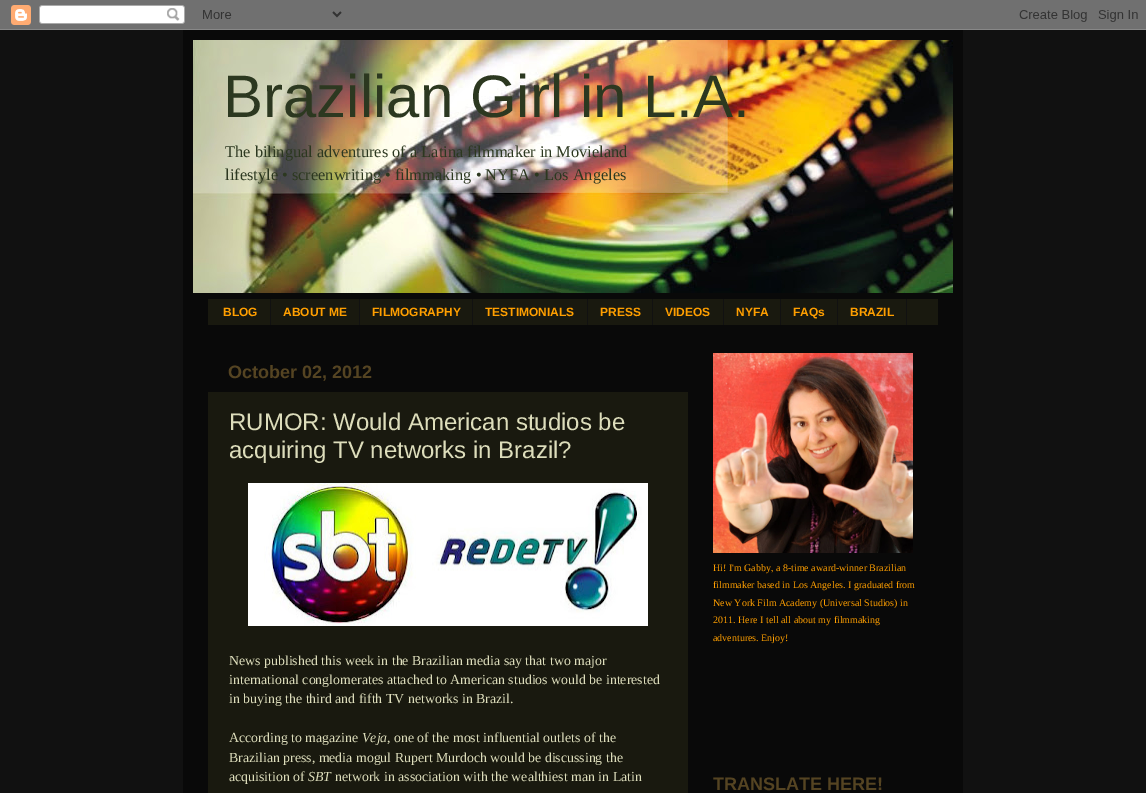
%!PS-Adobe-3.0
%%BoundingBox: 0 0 1146 793
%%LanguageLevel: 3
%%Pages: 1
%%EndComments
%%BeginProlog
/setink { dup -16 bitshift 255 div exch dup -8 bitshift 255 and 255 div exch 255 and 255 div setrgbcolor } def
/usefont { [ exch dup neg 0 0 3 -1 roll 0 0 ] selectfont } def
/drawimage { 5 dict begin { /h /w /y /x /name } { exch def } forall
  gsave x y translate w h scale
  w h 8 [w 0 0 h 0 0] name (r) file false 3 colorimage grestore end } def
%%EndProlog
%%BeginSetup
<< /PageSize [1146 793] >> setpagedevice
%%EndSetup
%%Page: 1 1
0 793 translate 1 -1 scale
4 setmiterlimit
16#111111 setink
0 0 1146 793 rectfill
(img1.raw) 0 0 1146 30 drawimage
16#090909 setink
183 30 780 763 rectfill
(img2.raw) 193 40 760 253 drawimage
/LiberationSans-Regular 60 usefont
16#2C3820 setink
223 117 moveto (Brazilian Girl in L.A.) show
/LiberationSerif-Regular 16.4 usefont
225 157 moveto (The bilingual adventures of a Latina filmmaker in Movieland) show
225 180 moveto (lifestyle • screenwriting • filmmaking • NYFA • Los Angeles) show
16#19190F setink
208 299 730 26 rectfill
16#111111 setink
270 299 1 26 rectfill
/LiberationSans-Bold 12 usefont
16#FF9F00 setink
223 316 moveto (BLOG) show
16#111111 setink
359 299 1 26 rectfill
16#FF9F00 setink
283 316 moveto (ABOUT ME) show
16#111111 setink
472 299 1 26 rectfill
16#FF9F00 setink
372 316 moveto (FILMOGRAPHY) show
16#111111 setink
587 299 1 26 rectfill
16#FF9F00 setink
485 316 moveto (TESTIMONIALS) show
16#111111 setink
652 299 1 26 rectfill
16#FF9F00 setink
600 316 moveto (PRESS) show
16#111111 setink
723 299 1 26 rectfill
16#FF9F00 setink
665 316 moveto (VIDEOS) show
16#111111 setink
780 299 1 26 rectfill
16#FF9F00 setink
736 316 moveto (NYFA) show
16#111111 setink
837 299 1 26 rectfill
16#FF9F00 setink
793 316 moveto (FAQs) show
16#111111 setink
906 299 1 26 rectfill
16#FF9F00 setink
850 316 moveto (BRAZIL) show
/LiberationSans-Bold 18 usefont
16#554422 setink
228 378 moveto (October 02, 2012) show
16#19190F setink
208 392 480 401 rectfill
/LiberationSans-Regular 24 usefont
16#DDDDBB setink
229 430 moveto (RUMOR: Would American studios be) show
229 458 moveto (acquiring TV networks in Brazil?) show
(img3.raw) 248 483 400 143 drawimage
/LiberationSerif-Regular 13.85 usefont
[
    [(News published this week in the Brazilian media say that two major) 229 665]
    [(international conglomerates attached to American studios would be interested) 229 684]
    [(in buying the third and fifth TV networks in Brazil.) 229 703]
    [(According to magazine) 229 742]
] { aload pop moveto show } forall
/LiberationSerif-Italic 13.85 usefont
362 742 moveto (Veja) show
/LiberationSerif-Regular 13.85 usefont
[
    [(, one of the most influential outlets of the) 387 742]
    [(Brazilian press, media mogul Rupert Murdoch would be discussing the) 229 762]
    [(acquisition of) 229 781]
] { aload pop moveto show } forall
/LiberationSerif-Italic 13.85 usefont
308 781 moveto (SBT) show
/LiberationSerif-Regular 13.85 usefont
335 781 moveto (network in association with the wealthiest man in Latin) show
(img4.raw) 713 353 200 200 drawimage
/LiberationSerif-Regular 10 usefont
16#FF9F00 setink
[
    [(Hi! I'm Gabby, a 8-time award-winner Brazilian) 713 571]
    [(filmmaker based in Los Angeles. I graduated from) 713 588]
    [(New York Film Academy \(Universal Studios\) in) 713 606]
    [(2011. Here I tell all about my filmmaking) 713 623]
    [(adventures. Enjoy!) 713 641]
] { aload pop moveto show } forall
/LiberationSans-Bold 18 usefont
16#554422 setink
713 790 moveto (TRANSLATE HERE!) show
showpage
%%EOF
